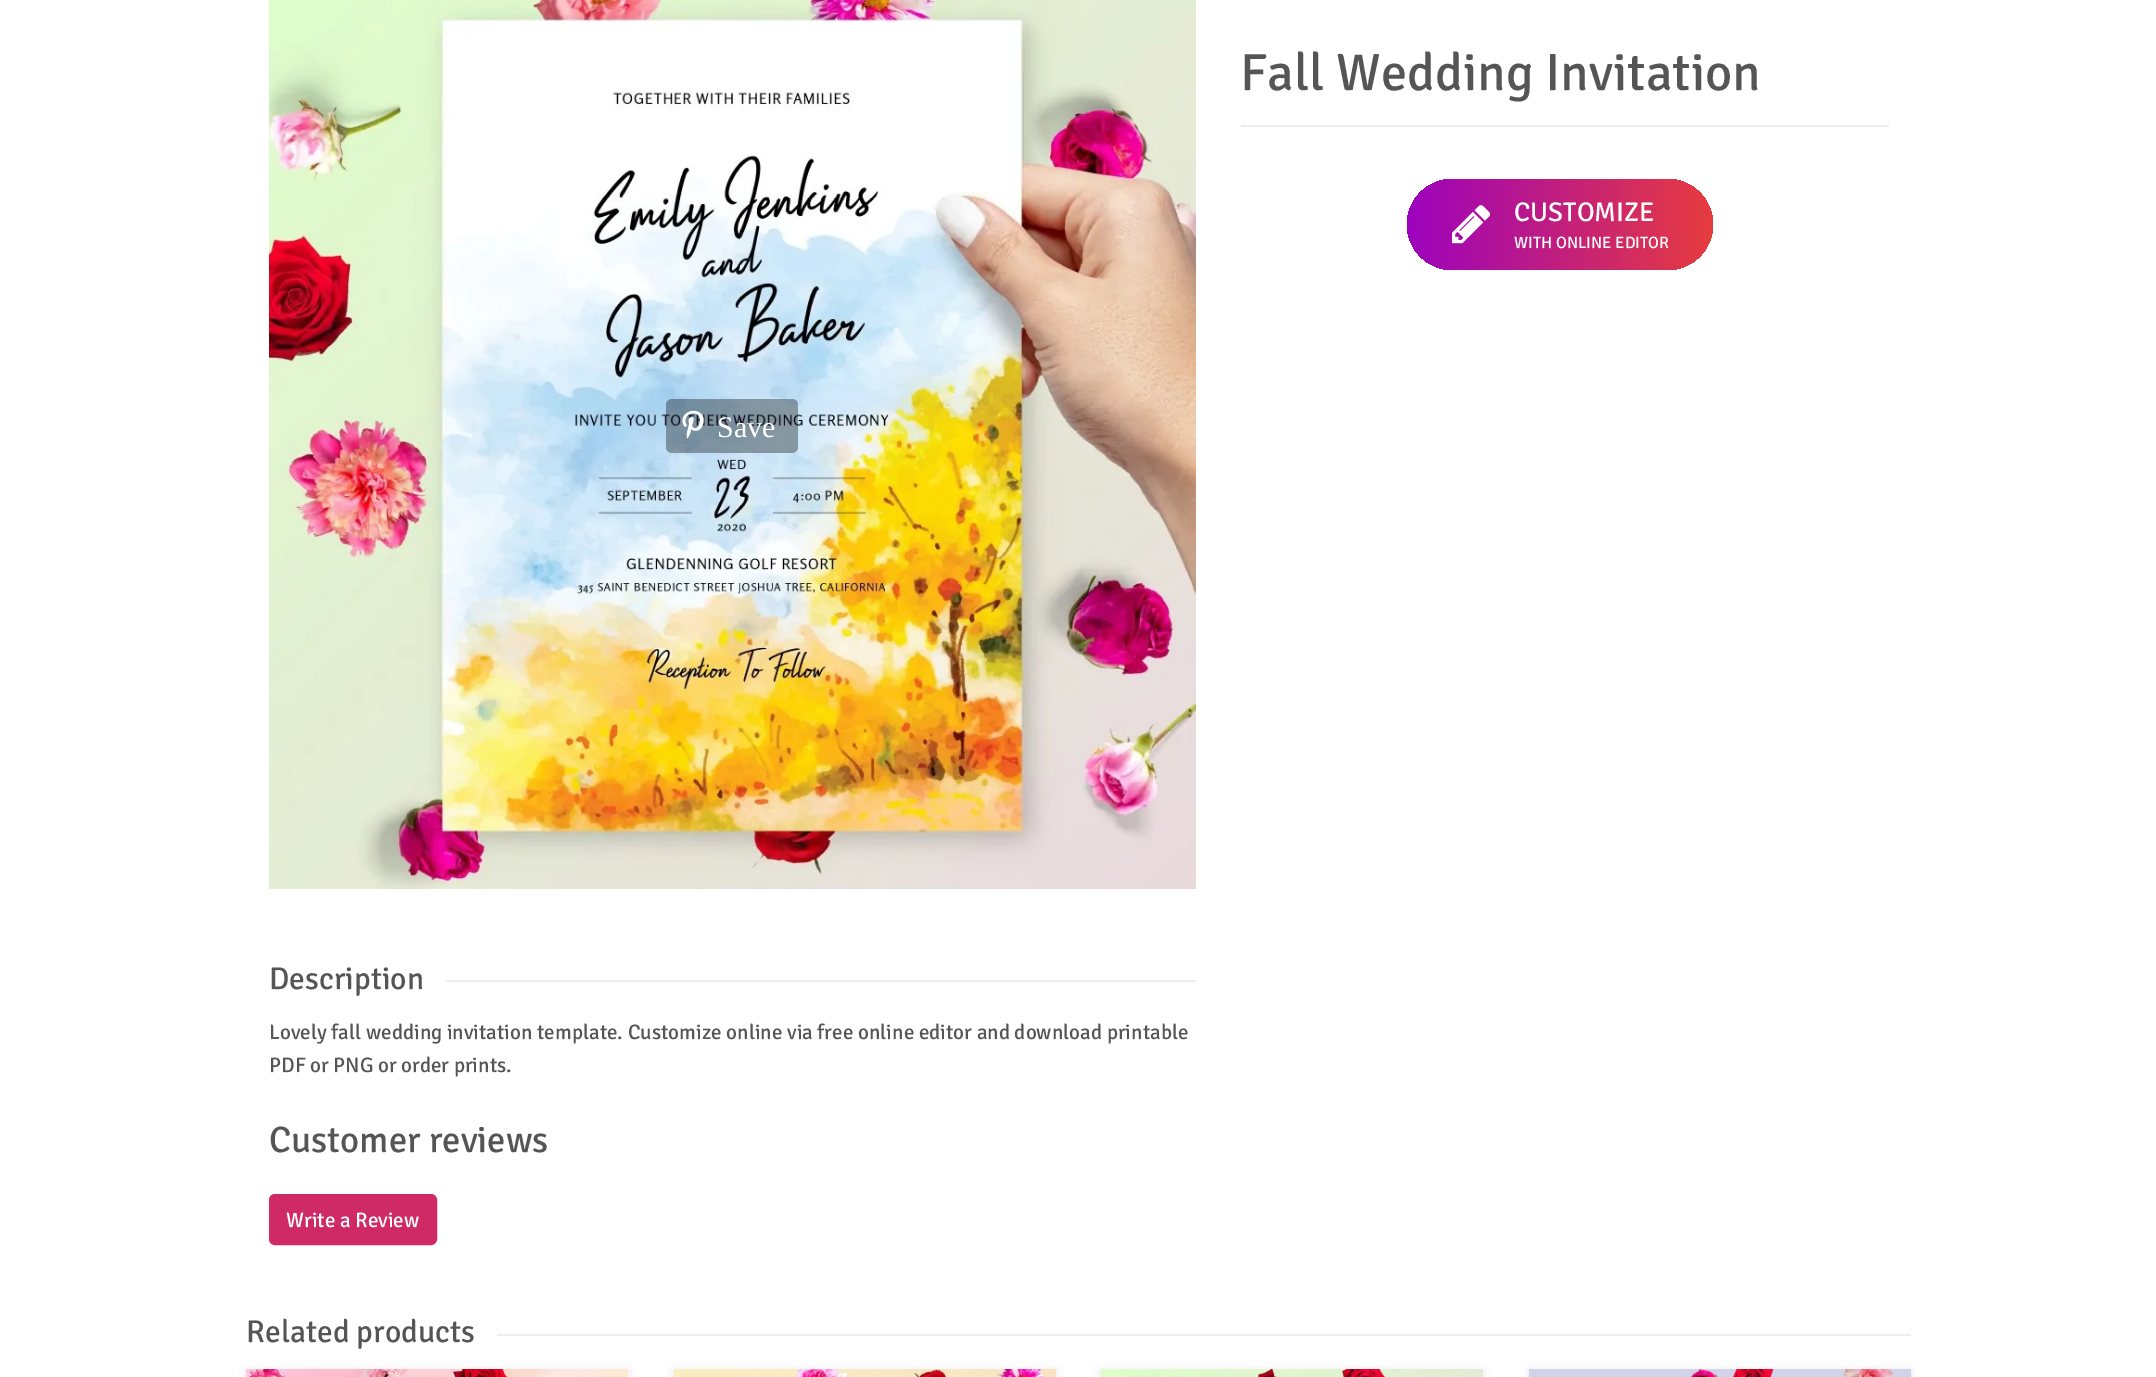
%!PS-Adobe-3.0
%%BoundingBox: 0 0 2156 1377
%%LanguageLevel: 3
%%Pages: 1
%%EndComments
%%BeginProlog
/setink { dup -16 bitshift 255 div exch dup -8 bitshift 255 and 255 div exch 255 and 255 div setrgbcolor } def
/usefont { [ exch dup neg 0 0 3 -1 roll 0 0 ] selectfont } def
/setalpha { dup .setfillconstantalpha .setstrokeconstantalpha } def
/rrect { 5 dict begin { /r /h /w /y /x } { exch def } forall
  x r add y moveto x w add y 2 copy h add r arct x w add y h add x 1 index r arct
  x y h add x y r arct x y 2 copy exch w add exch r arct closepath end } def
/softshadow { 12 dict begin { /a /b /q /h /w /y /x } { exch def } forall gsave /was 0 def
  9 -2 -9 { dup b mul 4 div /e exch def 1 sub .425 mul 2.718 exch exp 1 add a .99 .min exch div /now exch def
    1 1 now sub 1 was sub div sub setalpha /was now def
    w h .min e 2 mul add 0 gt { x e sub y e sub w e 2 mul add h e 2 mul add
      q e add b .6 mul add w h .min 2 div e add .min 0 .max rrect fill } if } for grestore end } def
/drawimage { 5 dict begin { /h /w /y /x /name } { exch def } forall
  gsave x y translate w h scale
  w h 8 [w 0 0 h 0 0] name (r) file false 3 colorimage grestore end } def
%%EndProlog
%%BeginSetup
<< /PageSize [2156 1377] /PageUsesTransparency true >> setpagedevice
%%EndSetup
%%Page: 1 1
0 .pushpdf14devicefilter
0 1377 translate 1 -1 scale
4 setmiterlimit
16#FFFFFF setink
0 0 2156 1377 rectfill
/Signika-Regular 52.5 usefont
16#555555 setink
1240 90 moveto (Fall Wedding Invitation) show
16#EEEEEE setink
1241 125 648 2 rectfill
gsave 1407 179 306 91 45.5 rrect clip newpath
<< /ShadingType 2 /ColorSpace /DeviceRGB /Coords [1407 224 1713 224] /Extend [true true] /Function << /FunctionType 2 /Domain [0 1] /C0 [0.612 0.008 0.745] /C1 [0.906 0.235 0.243] /N 1 >> >> shfill grestore
(img1.raw) 1452 205 38 39 drawimage
/Signika-Regular 27 usefont
16#FFFFFF setink
1514 221 moveto (CUSTOMIZE) show
/Signika-Regular 16.5 usefont
1514 248 moveto (WITH ONLINE EDITOR) show
(img2.raw) 269 0 927 889 drawimage
0.34 setalpha
16#000000 setink
666 399 132 54 6 rrect fill
1 setalpha
(img3.raw) 682 410 22 29 drawimage
/LiberationSerif-Regular 30 usefont
16#FFFFFF setink
717 437 moveto (Save) show
/Signika-Regular 31.5 usefont
16#555555 setink
269 989 moveto (Description) show
16#EEEEEE setink
446 980 750 2 rectfill
/Signika-Regular 21 usefont
16#555555 setink
269 1039 moveto (Lovely fall wedding invitation template. Customize online via free online editor and download printable) show
269 1072 moveto (PDF or PNG or order prints.) show
/Signika-Regular 36.75 usefont
269 1152 moveto (Customer reviews) show
16#D02A66 setink
270 1195 166 49 5 rrect gsave fill grestore
2 setlinewidth
stroke
/Signika-Regular 21 usefont
16#FFFFFF setink
286 1227 moveto (Write a Review) show
/Signika-Regular 31.5 usefont
16#555555 setink
246 1342 moveto (Related products) show
16#EEEEEE setink
497 1334 1414 2 rectfill
16#000000 setink
246 1370 383 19 0 4 0.1 softshadow
16#FFFFFF setink
628 1370 1 7 rectfill
(img4.raw) 246 1369 383 8 drawimage
16#000000 setink
674 1370 382 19 0 4 0.1 softshadow
(img5.raw) 673 1369 383 8 drawimage
1101 1370 383 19 0 4 0.1 softshadow
16#FFFFFF setink
1483 1370 1 7 rectfill
(img6.raw) 1101 1369 383 8 drawimage
16#000000 setink
1529 1370 382 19 0 4 0.1 softshadow
(img7.raw) 1528 1369 383 8 drawimage
.poppdf14devicefilter showpage
%%EOF
